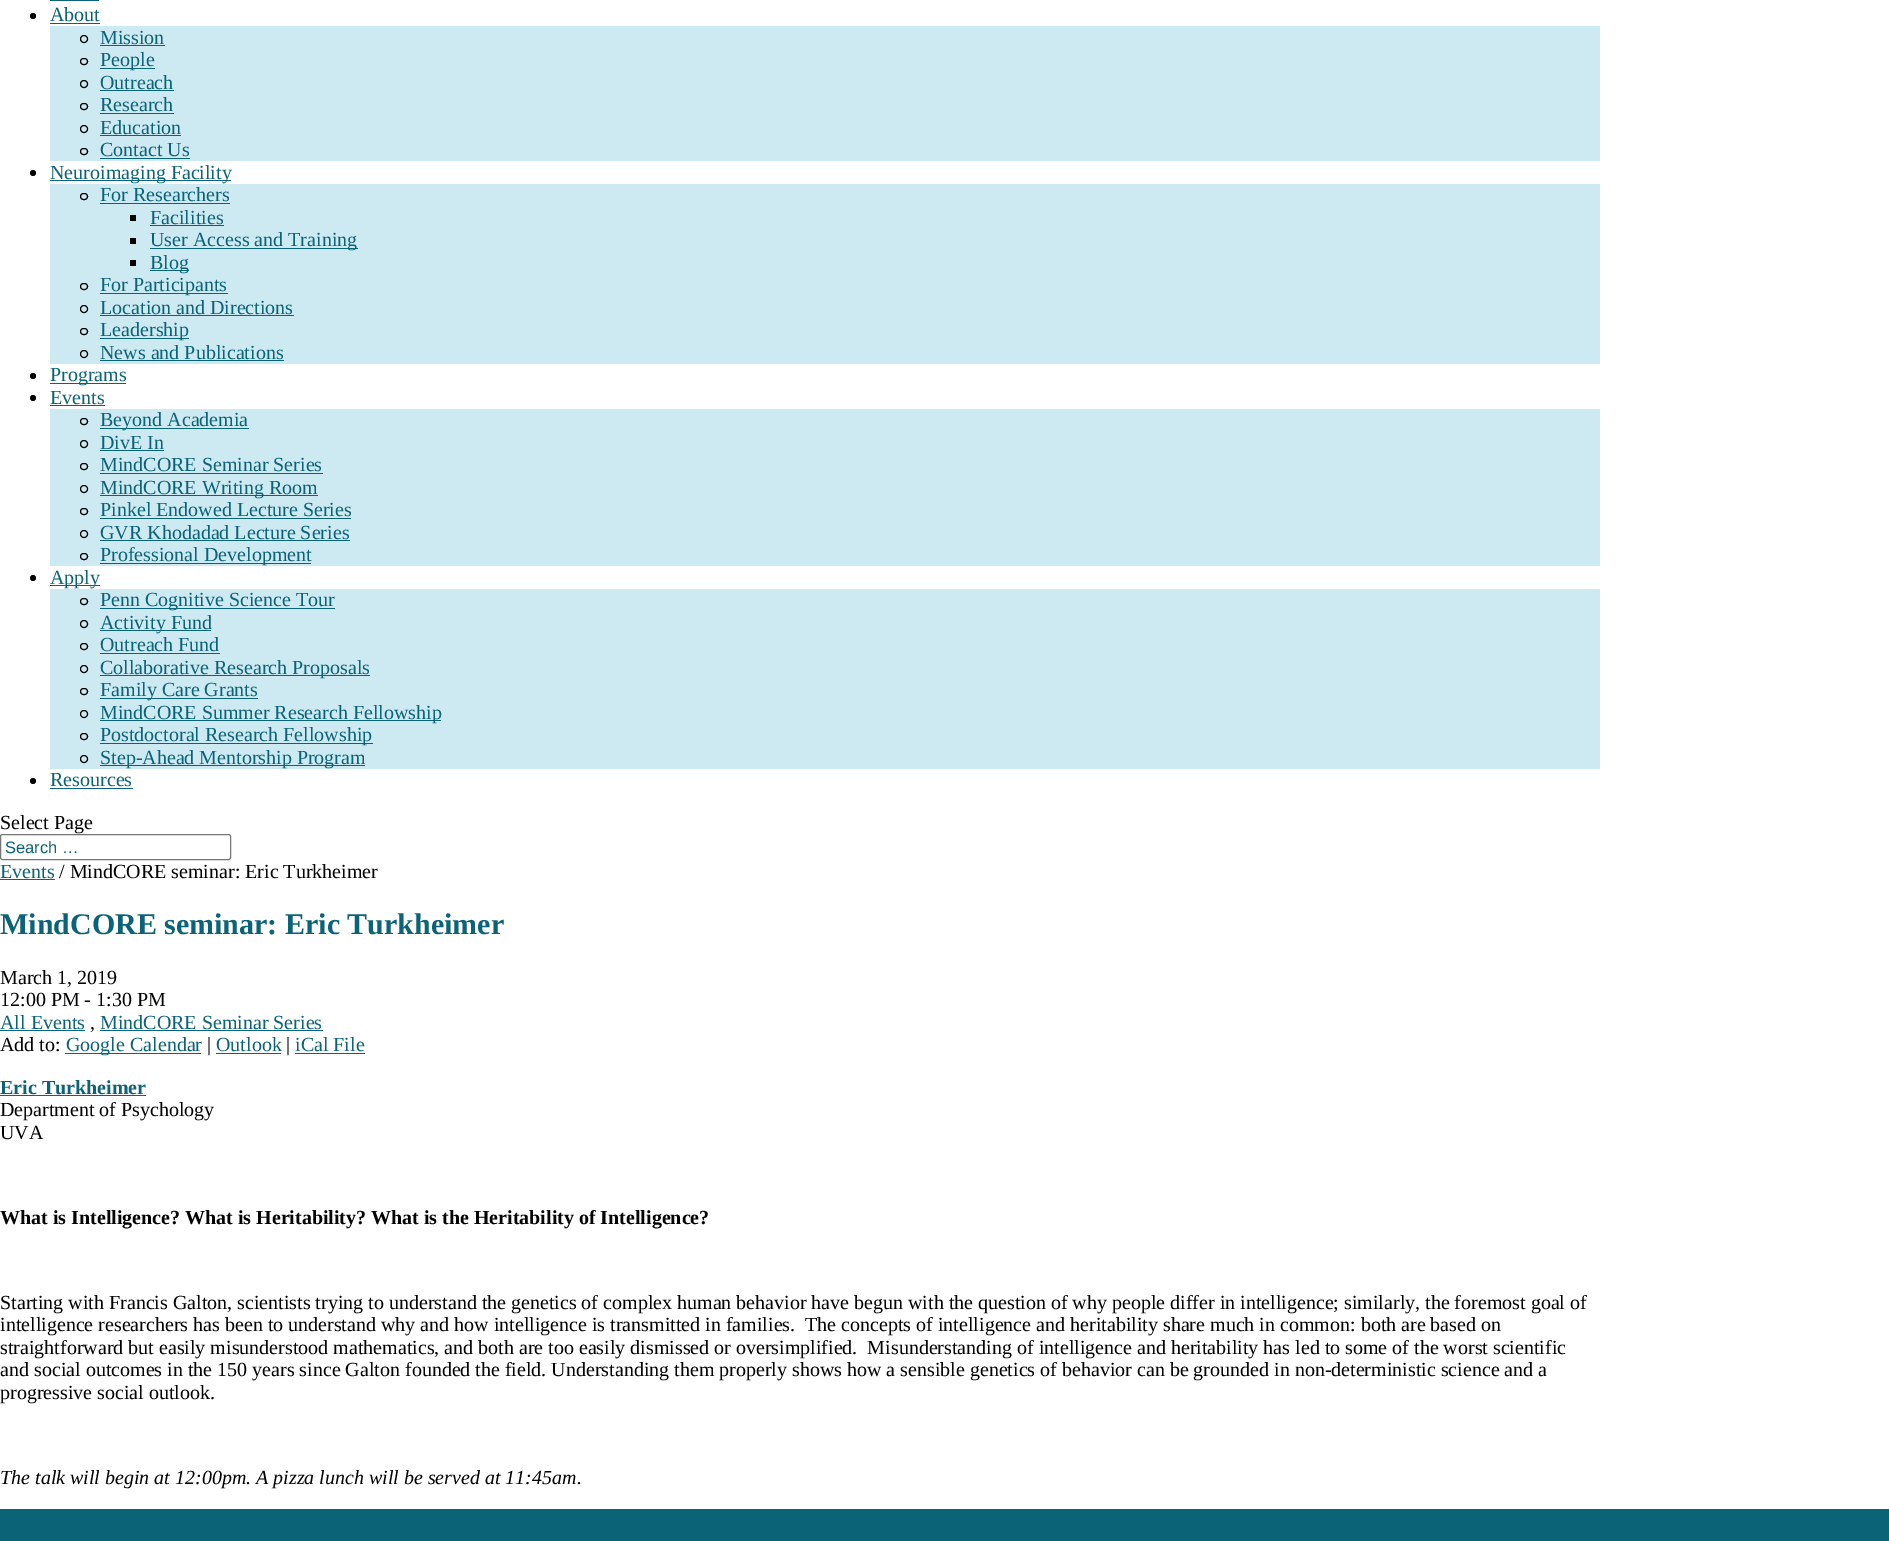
%!PS-Adobe-3.0
%%BoundingBox: 0 0 1889 1541
%%LanguageLevel: 3
%%Pages: 1
%%EndComments
%%BeginProlog
/setink { dup -16 bitshift 255 div exch dup -8 bitshift 255 and 255 div exch 255 and 255 div setrgbcolor } def
/usefont { [ exch dup neg 0 0 3 -1 roll 0 0 ] selectfont } def
/disc { newpath 0 360 arc closepath } def
/rrect { 5 dict begin { /r /h /w /y /x } { exch def } forall
  x r add y moveto x w add y 2 copy h add r arct x w add y h add x 1 index r arct
  x y h add x y r arct x y 2 copy exch w add exch r arct closepath end } def
%%EndProlog
%%BeginSetup
<< /PageSize [1889 1541] >> setpagedevice
%%EndSetup
%%Page: 1 1
0 1541 translate 1 -1 scale
4 setmiterlimit
16#FFFFFF setink
0 0 1889 1541 rectfill
16#0B6377 setink
50 0 49 1 rectfill
16#000000 setink
33 16 3 disc fill
/LiberationSerif-Regular 20 usefont
16#0B6377 setink
50 21 moveto (About) show
50 23 50 1 rectfill
16#CDEAF2 setink
50 26 1550 135 rectfill
16#000000 setink
84 39 3.5 disc stroke
16#0B6377 setink
100 44 moveto (Mission) show
100 45 65 1 rectfill
16#000000 setink
80.5 58.5 7 6 3 rrect stroke
16#0B6377 setink
100 68 55 1 rectfill
100 66 moveto (People) show
16#000000 setink
84 84 3.5 disc stroke
16#0B6377 setink
100 89 moveto (Outreach) show
100 90 74 1 rectfill
16#000000 setink
80.5 103.5 7 6 3 rrect stroke
16#0B6377 setink
100 111 moveto (Research) show
100 113 74 1 rectfill
16#000000 setink
84 129 3.5 disc stroke
16#0B6377 setink
100 134 moveto (Education) show
100 135 81 1 rectfill
16#000000 setink
80.5 148.5 7 6 3 rrect stroke
16#0B6377 setink
100 156 moveto (Contact Us) show
100 158 90 1 rectfill
16#000000 setink
33 173 3 disc fill
16#0B6377 setink
50 180 181 1 rectfill
50 179 moveto (Neuroimaging Facility) show
16#CDEAF2 setink
50 184 1550 180 rectfill
16#000000 setink
80.5 193.5 7 6 3 rrect stroke
16#0B6377 setink
100 201 moveto (For Researchers) show
100 203 130 1 rectfill
16#000000 setink
130 215 6 6 rectfill
16#0B6377 setink
150 224 moveto (Facilities) show
[
    [150 225 74 1 16#0B6377]
    [130 238 6 6 16#000000]
    [150 248 208 1 16#0B6377]
] { aload pop setink rectfill } forall
150 246 moveto (User Access and Training) show
16#000000 setink
130 260 6 6 rectfill
16#0B6377 setink
150 270 39 1 rectfill
150 269 moveto (Blog) show
16#000000 setink
80.5 283.5 7 6 3 rrect stroke
16#0B6377 setink
100 293 128 1 rectfill
100 291 moveto (For Participants) show
16#000000 setink
84 309 3.5 disc stroke
16#0B6377 setink
100 314 moveto (Location and Directions) show
100 315 194 1 rectfill
16#000000 setink
80.5 328.5 7 6 3 rrect stroke
16#0B6377 setink
100 338 89 1 rectfill
100 336 moveto (Leadership) show
16#000000 setink
84 354 3.5 disc stroke
16#0B6377 setink
100 359 moveto (News and Publications) show
100 360 184 1 rectfill
16#000000 setink
33 376 3 disc fill
16#0B6377 setink
50 383 76 1 rectfill
50 381 moveto (Programs) show
16#000000 setink
33 398 3 disc fill
16#0B6377 setink
50 404 moveto (Events) show
50 405 55 1 rectfill
16#CDEAF2 setink
50 409 1550 157 rectfill
16#000000 setink
80.5 418.5 7 6 3 rrect stroke
16#0B6377 setink
100 428 149 1 rectfill
100 426 moveto (Beyond Academia) show
16#000000 setink
84 444 3.5 disc stroke
16#0B6377 setink
100 449 moveto (DivE In) show
100 450 64 1 rectfill
16#000000 setink
80.5 463.5 7 6 3 rrect stroke
16#0B6377 setink
100 471 moveto (MindCORE Seminar Series) show
100 473 223 1 rectfill
16#000000 setink
84 489 3.5 disc stroke
16#0B6377 setink
100 495 218 1 rectfill
100 494 moveto (MindCORE Writing Room) show
16#000000 setink
80.5 508.5 7 6 3 rrect stroke
16#0B6377 setink
100 516 moveto (Pinkel Endowed Lecture Series) show
100 518 251 1 rectfill
16#000000 setink
84 534 3.5 disc stroke
16#0B6377 setink
100 539 moveto (GVR Khodadad Lecture Series) show
100 540 250 1 rectfill
16#000000 setink
80.5 553.5 7 6 3 rrect stroke
16#0B6377 setink
100 563 211 1 rectfill
100 561 moveto (Professional Development) show
16#000000 setink
33 578 3 disc fill
16#0B6377 setink
50 585 50 1 rectfill
50 584 moveto (Apply) show
16#CDEAF2 setink
50 589 1550 180 rectfill
16#000000 setink
80.5 598.5 7 6 3 rrect stroke
16#0B6377 setink
100 608 235 1 rectfill
100 606 moveto (Penn Cognitive Science Tour) show
16#000000 setink
84 624 3.5 disc stroke
16#0B6377 setink
100 630 111 1 rectfill
100 629 moveto (Activity Fund) show
16#000000 setink
80.5 643.5 7 6 3 rrect stroke
16#0B6377 setink
100 651 moveto (Outreach Fund) show
100 653 120 1 rectfill
16#000000 setink
84 669 3.5 disc stroke
16#0B6377 setink
100 675 270 1 rectfill
100 674 moveto (Collaborative Research Proposals) show
16#000000 setink
80.5 688.5 7 6 3 rrect stroke
16#0B6377 setink
100 698 158 1 rectfill
100 696 moveto (Family Care Grants) show
16#000000 setink
84 714 3.5 disc stroke
16#0B6377 setink
100 720 341 1 rectfill
100 719 moveto (MindCORE Summer Research Fellowship) show
16#000000 setink
80.5 733.5 7 6 3 rrect stroke
16#0B6377 setink
100 743 273 1 rectfill
100 741 moveto (Postdoctoral Research Fellowship) show
16#000000 setink
84 759 3.5 disc stroke
16#0B6377 setink
100 765 265 1 rectfill
100 764 moveto (Step-Ahead Mentorship Program) show
16#000000 setink
33 781 3 disc fill
16#0B6377 setink
50 786 moveto (Resources) show
50 788 83 1 rectfill
16#000000 setink
0 829 moveto (Select Page) show
16#767676 setink
0.5 834.5 230 25 2 rrect stroke
/LiberationSans-Regular 16.5 usefont
16#0B6377 setink
5 853 moveto (Search …) show
/LiberationSerif-Regular 20 usefont
0 878 moveto (Events) show
0 879 55 1 rectfill
16#000000 setink
59 878 moveto (/ MindCORE seminar: Eric Turkheimer) show
/LiberationSerif-Bold 30 usefont
16#0B6377 setink
0 934 moveto (MindCORE seminar: Eric Turkheimer) show
/LiberationSerif-Regular 20 usefont
16#000000 setink
0 984 moveto (March 1, 2019) show
0 1006 moveto (12:00 PM - 1:30 PM) show
16#0B6377 setink
0 1029 moveto (All Events) show
0 1030 85 1 rectfill
16#000000 setink
90 1029 moveto (,) show
16#0B6377 setink
100 1029 moveto (MindCORE Seminar Series) show
100 1030 223 1 rectfill
16#000000 setink
0 1051 moveto (Add to:) show
16#0B6377 setink
65 1053 136 1 rectfill
66 1051 moveto (Google Calendar) show
16#000000 setink
207 1051 moveto (|) show
16#0B6377 setink
216 1051 moveto (Outlook) show
216 1053 65 1 rectfill
16#000000 setink
286 1051 moveto (|) show
16#0B6377 setink
295 1051 moveto (iCal File) show
295 1053 70 1 rectfill
/LiberationSerif-Bold 20 usefont
0 1094 moveto (Eric Turkheimer) show
0 1095 146 1 rectfill
/LiberationSerif-Regular 20 usefont
16#000000 setink
0 1116 moveto (Department of Psychology) show
0 1139 moveto (UVA) show
/LiberationSerif-Bold 20 usefont
0 1224 moveto (What is Intelligence? What is Heritability? What is the Heritability of Intelligence?) show
/LiberationSerif-Regular 20 usefont
[
    [(Starting with Francis Galton, scientists trying to understand the genetics of complex human behavior have begun with the question of why people differ in intelligence; similarly, the foremost goal of) 0 1309]
    [(intelligence researchers has been to understand why and how intelligence is transmitted in families.  The concepts of intelligence and heritability share much in common: both are based on) 0 1331]
    [(straightforward but easily misunderstood mathematics, and both are too easily dismissed or oversimplified.  Misunderstanding of intelligence and heritability has led to some of the worst scientific) 0 1354]
    [(and social outcomes in the 150 years since Galton founded the field. Understanding them properly shows how a sensible genetics of behavior can be grounded in non-deterministic science and a) 0 1376]
    [(progressive social outlook.) 0 1399]
] { aload pop moveto show } forall
/LiberationSerif-Italic 20 usefont
0 1484 moveto (The talk will begin at 12:00pm. A pizza lunch will be served at 11:45am.) show
16#0B6377 setink
0 1509 1889 32 rectfill
showpage
%%EOF
